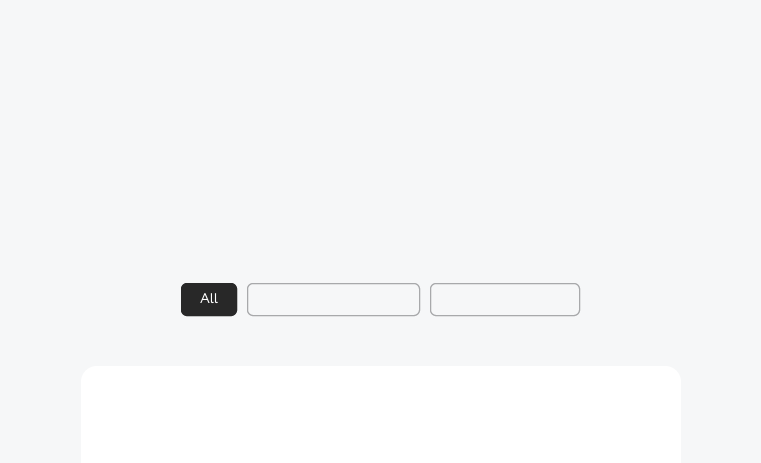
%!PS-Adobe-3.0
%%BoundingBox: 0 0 761 463
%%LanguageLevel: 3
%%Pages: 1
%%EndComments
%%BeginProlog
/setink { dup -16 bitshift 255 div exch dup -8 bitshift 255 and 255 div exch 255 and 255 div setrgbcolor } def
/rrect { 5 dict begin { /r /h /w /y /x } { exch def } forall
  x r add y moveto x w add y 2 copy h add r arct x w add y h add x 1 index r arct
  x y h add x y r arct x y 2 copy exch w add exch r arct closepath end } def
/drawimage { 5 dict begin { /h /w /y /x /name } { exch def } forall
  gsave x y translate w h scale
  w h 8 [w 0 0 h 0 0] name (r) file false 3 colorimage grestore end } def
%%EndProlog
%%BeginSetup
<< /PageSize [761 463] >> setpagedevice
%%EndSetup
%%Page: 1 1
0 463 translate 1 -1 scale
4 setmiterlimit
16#F6F7F8 setink
0 0 761 463 rectfill
16#282828 setink
181.5 283.5 55 32 5.5 rrect gsave fill grestore
stroke
(img1.raw) 200 293 18 11 drawimage
16#A8A9AB setink
247.5 283.5 172 32 5.5 rrect stroke
430.5 283.5 149 32 5.5 rrect stroke
16#FFFFFF setink
81 366 600 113 16 rrect fill
showpage
%%EOF
